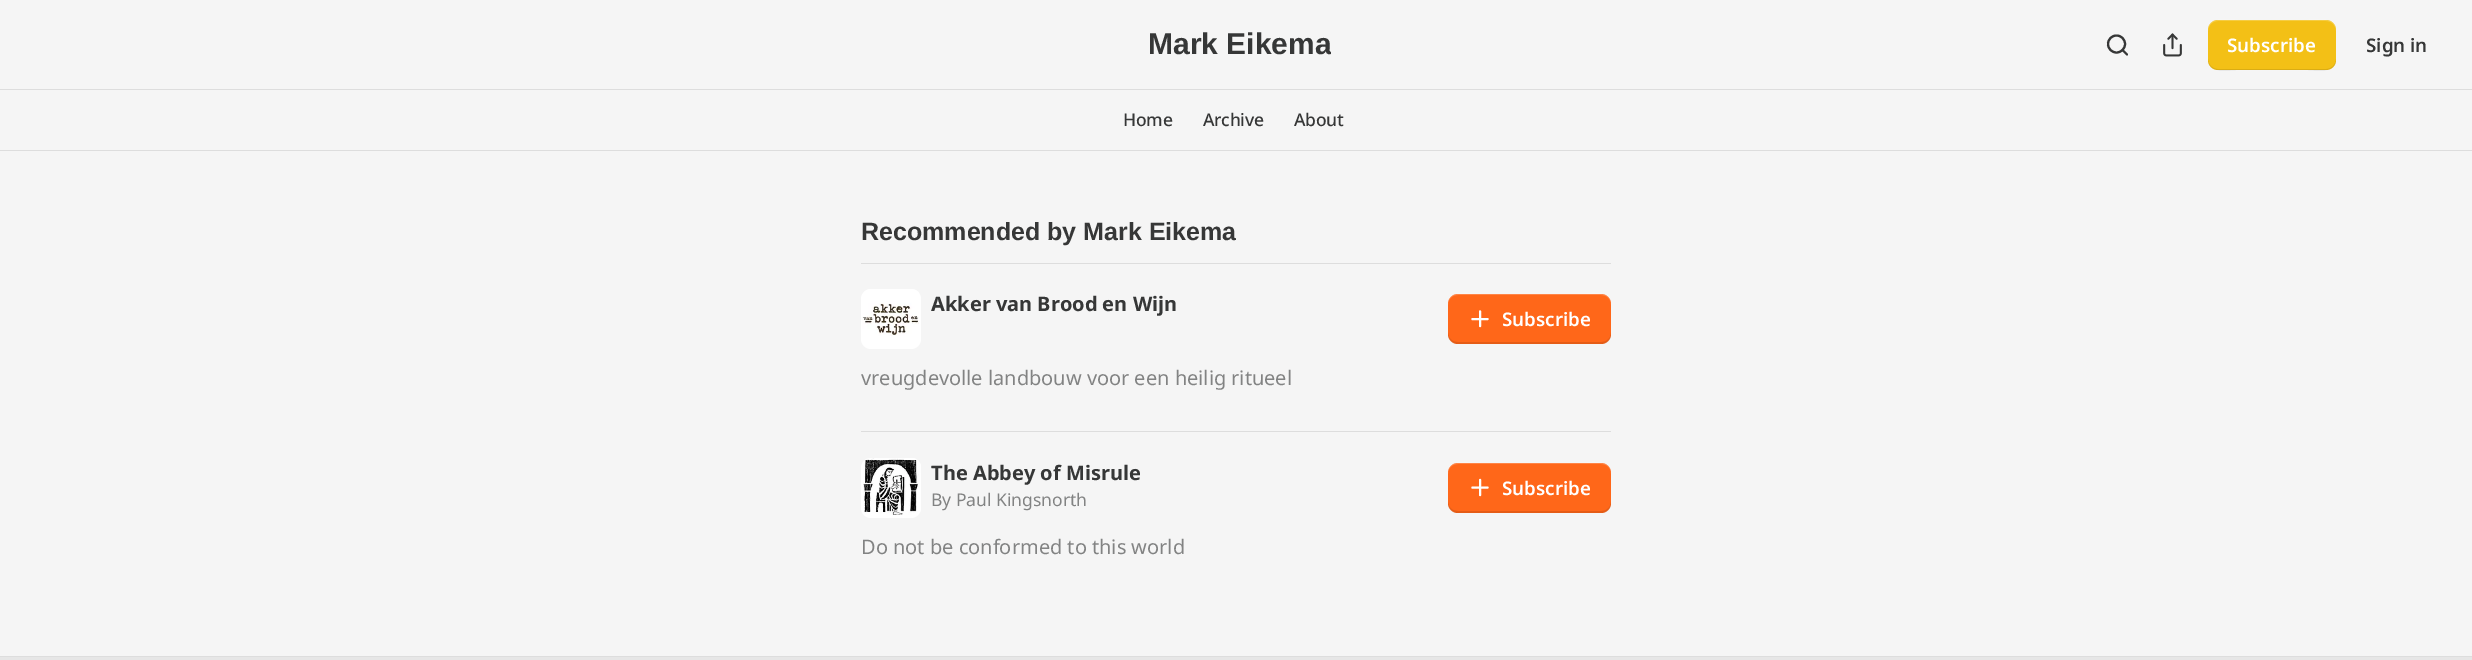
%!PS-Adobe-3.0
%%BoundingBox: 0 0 2472 660
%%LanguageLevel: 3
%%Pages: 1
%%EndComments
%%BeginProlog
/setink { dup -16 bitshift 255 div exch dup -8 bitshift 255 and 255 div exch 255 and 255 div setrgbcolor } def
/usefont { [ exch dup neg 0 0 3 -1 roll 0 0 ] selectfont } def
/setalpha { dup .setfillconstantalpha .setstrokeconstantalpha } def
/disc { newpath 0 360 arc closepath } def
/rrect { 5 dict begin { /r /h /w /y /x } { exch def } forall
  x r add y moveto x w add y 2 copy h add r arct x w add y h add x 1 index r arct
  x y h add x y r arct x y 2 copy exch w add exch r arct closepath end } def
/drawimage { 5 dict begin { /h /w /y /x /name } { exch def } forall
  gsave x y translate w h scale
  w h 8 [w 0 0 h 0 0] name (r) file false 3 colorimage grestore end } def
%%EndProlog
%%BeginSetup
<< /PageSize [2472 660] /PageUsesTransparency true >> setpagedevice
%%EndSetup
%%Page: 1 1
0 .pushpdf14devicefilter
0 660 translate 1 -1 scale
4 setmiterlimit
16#F5F5F5 setink
0 0 2472 660 rectfill
gsave
1148 25 183 40 rectclip
/LiberationSans-Bold 30 usefont
16#363737 setink
1148 54 moveto (Mark Eikema) show
grestore
16#363737 setink
2.1 setlinewidth
2116.5 44 8.5 disc stroke
1 setlinecap
1 setlinejoin
2127 54.5 moveto 2122.5 50 lineto stroke
(img1.raw) 2163 33 19 24 drawimage
16#F3C016 setink
2208 20 128 50 10 rrect fill
0.1 setalpha
16#000000 setink
2208 59 moveto 2208 74 2226 70 2236 70 curveto 2308 70 lineto 2318 70 2336 74 2336 59 curveto 2336 64 2332 69 2326 69 curveto 2218 69 lineto 2212 69 2208 64 2208 59 curveto closepath fill
0.2 setalpha
16#FFFFFF setink
2218 21 moveto 2326 21 lineto 2332 21 2336 26 2336 31 curveto 2336 16 2318 20 2308 20 curveto 2236 20 lineto 2226 20 2208 16 2208 31 curveto 2208 26 2212 21 2218 21 curveto closepath fill
/NotoSans-SemiBold 18.75 usefont
1 setalpha
2227 52 moveto (Subscribe) show
16#363737 setink
2366 52 moveto (Sign in) show
16#DDDDDD setink
0 89 2472 1 rectfill
0 150 2472 1 rectfill
/NotoSans-Medium 17.5 usefont
16#363737 setink
1123 126 moveto -0.25 0 (Home) ashow
1203 126 moveto -0.25 0 (Archive) ashow
1294 126 moveto -0.25 0 (About) ashow
/LiberationSans-Bold 25 usefont
861 240 moveto (Recommended by Mark Eikema) show
16#DDDDDD setink
861 263 750 1 rectfill
16#FFFFFF setink
861 289 60 60 10 rrect fill
(img2.raw) 862 289 57 47 drawimage
/NotoSans-Bold 20 usefont
16#363737 setink
931 311 moveto (Akker van Brood en Wijn) show
16#FF6719 setink
1448 294 163 50 10 rrect fill
0.1 setalpha
16#000000 setink
1448 332 moveto 1448 334 lineto 1448 340 1452 344 1458 344 curveto 1601 344 lineto 1607 344 1611 340 1611 334 curveto 1611 332 lineto 1611 338 1607 342 1601 342 curveto 1458 342 lineto 1452 342 1448 338 1448 332 curveto closepath fill
0.2 setalpha
16#FFFFFF setink
1458 295 moveto 1601 295 lineto 1607 295 1611 299 1611 305 curveto 1611 288 1586 294 1577 294 curveto 1482 294 lineto 1473 294 1448 288 1448 305 curveto 1448 299 1452 295 1458 295 curveto closepath fill
1 setalpha
1472.5 319 moveto 1487.5 319 lineto 1480 311.5 moveto 1480 326 lineto stroke
/NotoSans-SemiBold 18.75 usefont
1502 326 moveto (Subscribe) show
/NotoSans-Regular 20 usefont
16#828383 setink
861 385 moveto (vreugdevolle landbouw voor een heilig ritueel) show
16#DDDDDD setink
861 431 750 1 rectfill
16#FFFFFF setink
861 458 60 60 10 rrect fill
(img3.raw) 863 458 58 57 drawimage
/NotoSans-Bold 20 usefont
16#363737 setink
931 480 moveto (The Abbey of Misrule) show
/NotoSans-Regular 17.5 usefont
16#828383 setink
931 506 moveto (By Paul Kingsnorth) show
16#FF6719 setink
1448 463 163 50 10 rrect fill
0.1 setalpha
16#000000 setink
1448 501 moveto 1448 503 lineto 1448 509 1452 513 1458 513 curveto 1601 513 lineto 1607 513 1611 509 1611 503 curveto 1611 501 lineto 1611 507 1607 511 1601 511 curveto 1458 511 lineto 1452 511 1448 507 1448 501 curveto closepath fill
0.2 setalpha
16#FFFFFF setink
1458 464 moveto 1601 464 lineto 1607 464 1611 468 1611 474 curveto 1611 457 1586 463 1577 463 curveto 1482 463 lineto 1473 463 1448 457 1448 474 curveto 1448 468 1452 464 1458 464 curveto closepath fill
1 setalpha
1472.5 487.5 moveto 1487.5 487.5 lineto 1480 480 moveto 1480 495 lineto stroke
/NotoSans-SemiBold 18.75 usefont
1502 495 moveto (Subscribe) show
/NotoSans-Regular 20 usefont
16#828383 setink
861 554 moveto (Do not be conformed to this world) show
16#E6E6E6 setink
0 657 2472 3 rectfill
16#DDDDDD setink
0 656 2472 1 rectfill
.poppdf14devicefilter showpage
%%EOF
